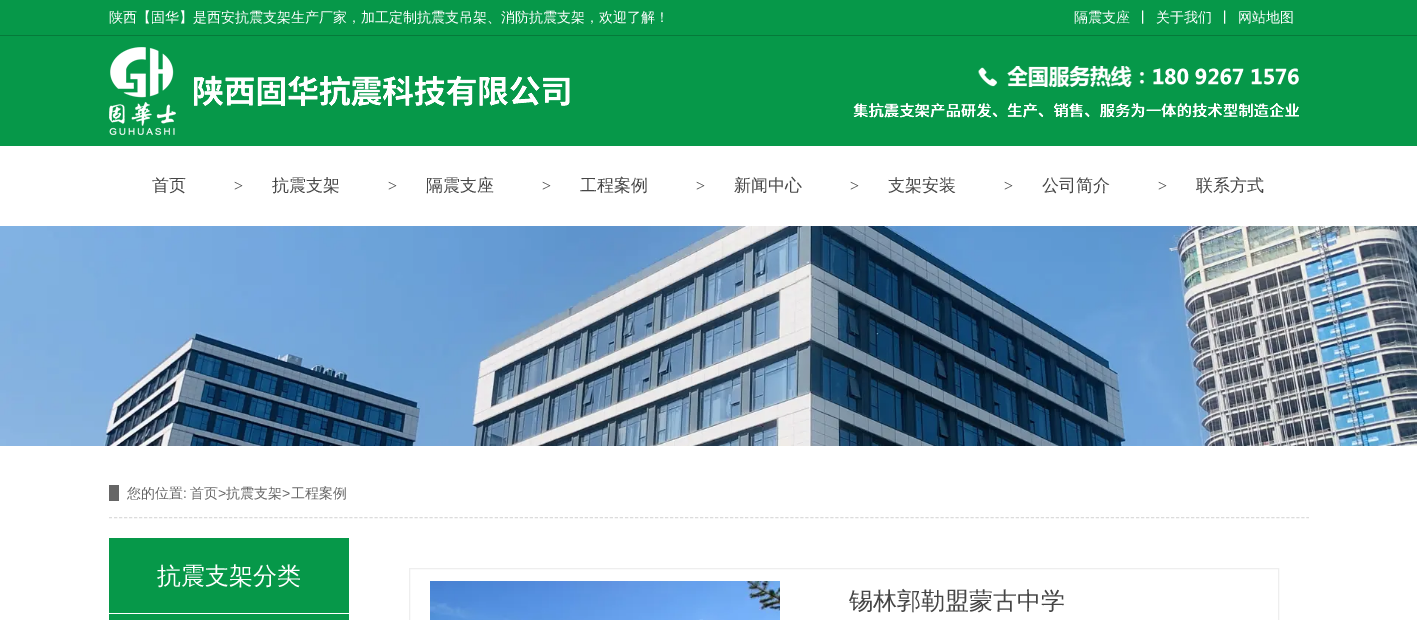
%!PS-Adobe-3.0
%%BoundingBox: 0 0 1417 620
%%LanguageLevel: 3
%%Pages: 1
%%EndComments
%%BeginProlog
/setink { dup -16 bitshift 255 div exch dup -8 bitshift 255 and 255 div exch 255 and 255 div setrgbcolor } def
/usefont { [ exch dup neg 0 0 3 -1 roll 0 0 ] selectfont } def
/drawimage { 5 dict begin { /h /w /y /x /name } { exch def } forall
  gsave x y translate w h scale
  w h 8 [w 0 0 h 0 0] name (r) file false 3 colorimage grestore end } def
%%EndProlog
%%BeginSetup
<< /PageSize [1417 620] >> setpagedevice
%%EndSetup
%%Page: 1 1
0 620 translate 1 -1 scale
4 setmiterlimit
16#FFFFFF setink
0 0 1417 620 rectfill
16#069849 setink
0 0 1417 146 rectfill
16#057A3A setink
0 35 1417 1 rectfill
/WenQuanYiZenHei-Medium 14 usefont
16#FFFFFF setink
[
    [(陕西【固华】是西安抗震支架生产厂家，加工定制抗震支吊架、消防抗震支架，欢迎了解！) 109 22]
    [(隔震支座) 1074 22]
    [(丨) 1136 22]
    [(关于我们) 1156 22]
    [(丨) 1218 22]
    [(网站地图) 1238 22]
] { aload pop moveto show } forall
(img1.raw) 109 47 1190 88 drawimage
/WenQuanYiZenHei-Medium 17 usefont
16#454545 setink
152 191 moveto (首页) show
/LiberationSerif-Regular 16 usefont
234 191 moveto (>) show
/WenQuanYiZenHei-Medium 17 usefont
272 191 moveto (抗震支架) show
/LiberationSerif-Regular 16 usefont
388 191 moveto (>) show
/WenQuanYiZenHei-Medium 17 usefont
426 191 moveto (隔震支座) show
/LiberationSerif-Regular 16 usefont
542 191 moveto (>) show
/WenQuanYiZenHei-Medium 17 usefont
580 191 moveto (工程案例) show
/LiberationSerif-Regular 16 usefont
696 191 moveto (>) show
/WenQuanYiZenHei-Medium 17 usefont
734 191 moveto (新闻中心) show
/LiberationSerif-Regular 16 usefont
850 191 moveto (>) show
/WenQuanYiZenHei-Medium 17 usefont
888 191 moveto (支架安装) show
/LiberationSerif-Regular 16 usefont
1004 191 moveto (>) show
/WenQuanYiZenHei-Medium 17 usefont
1042 191 moveto (公司简介) show
/LiberationSerif-Regular 16 usefont
1158 191 moveto (>) show
/WenQuanYiZenHei-Medium 17 usefont
1196 191 moveto (联系方式) show
(img2.raw) 0 226 1417 220 drawimage
16#DCDCDC setink
[3 2.01] 0 setdash
109 517.5 moveto 1309 517.5 lineto stroke
/WenQuanYiZenHei-Medium 14 usefont
16#666666 setink
127 498 moveto (您的位置) show
109 485 10 16 rectfill
/LiberationSans-Regular 14 usefont
183 498 moveto (:) show
/WenQuanYiZenHei-Medium 14 usefont
190 498 moveto (首页) show
/LiberationSans-Regular 14 usefont
218 498 moveto (>) show
/WenQuanYiZenHei-Medium 14 usefont
226 498 moveto (抗震支架) show
/LiberationSans-Regular 14 usefont
282 498 moveto (>) show
/WenQuanYiZenHei-Medium 14 usefont
291 498 moveto (工程案例) show
16#069849 setink
109 538 240 75 rectfill
/WenQuanYiZenHei-Medium 24 usefont
16#FFFFFF setink
157 584 moveto (抗震支架分类) show
16#069849 setink
109 614 240 6 rectfill
16#EEEEEE setink
[] 0 setdash
409.5 568.5 869 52 rectstroke
(img3.raw) 430 581 350 39 drawimage
16#454545 setink
849 609 moveto (锡林郭勒盟蒙古中学) show
showpage
%%EOF
